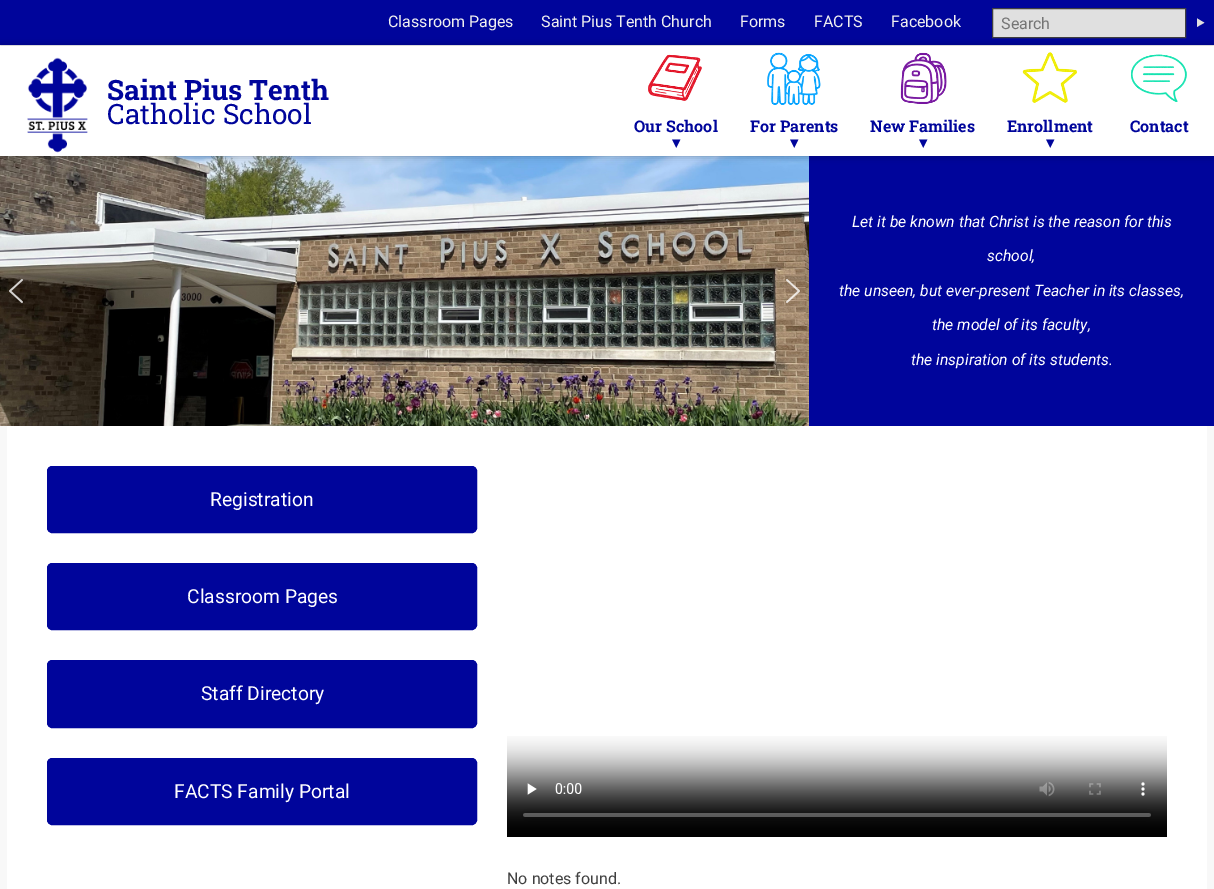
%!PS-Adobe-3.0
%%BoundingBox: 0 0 1214 889
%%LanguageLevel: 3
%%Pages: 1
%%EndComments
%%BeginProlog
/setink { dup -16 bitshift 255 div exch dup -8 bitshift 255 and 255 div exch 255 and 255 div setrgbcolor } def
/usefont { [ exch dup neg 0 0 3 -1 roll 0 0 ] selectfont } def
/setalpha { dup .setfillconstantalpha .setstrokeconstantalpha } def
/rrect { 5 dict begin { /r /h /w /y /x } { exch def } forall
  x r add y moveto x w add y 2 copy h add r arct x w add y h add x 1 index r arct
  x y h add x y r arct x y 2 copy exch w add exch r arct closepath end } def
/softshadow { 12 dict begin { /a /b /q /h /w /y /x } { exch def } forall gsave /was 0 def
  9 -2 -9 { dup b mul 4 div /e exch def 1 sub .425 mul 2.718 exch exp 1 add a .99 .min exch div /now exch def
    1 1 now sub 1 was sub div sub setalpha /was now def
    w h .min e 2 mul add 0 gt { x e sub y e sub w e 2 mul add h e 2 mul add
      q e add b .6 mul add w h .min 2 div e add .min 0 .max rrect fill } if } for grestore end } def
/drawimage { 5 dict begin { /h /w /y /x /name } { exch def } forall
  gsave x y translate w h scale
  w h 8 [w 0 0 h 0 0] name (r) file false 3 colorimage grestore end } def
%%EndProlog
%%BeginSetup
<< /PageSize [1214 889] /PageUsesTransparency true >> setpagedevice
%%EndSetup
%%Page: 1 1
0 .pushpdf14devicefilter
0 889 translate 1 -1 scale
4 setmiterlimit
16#F8F8F8 setink
0 0 1214 889 rectfill
16#00059B setink
0 0 1214 45 rectfill
16#FFFFFF setink
0 45 1214 1 rectfill
/Roboto-Regular 16 usefont
16#F0F0F0 setink
[
    [(Classroom Pages) 388 27]
    [(Saint Pius Tenth Church) 541 27]
    [(Forms) 740 27]
    [(FACTS) 814 27]
    [(Facebook) 891 27]
] { aload pop moveto show } forall
16#E0E0E0 setink
992.5 8.5 moveto 1185.5 8.5 lineto 1185.5 37.5 lineto 992.5 37.5 lineto closepath gsave fill grestore
16#404040 setink
stroke
16#757575 setink
1001 29 moveto (Search) show
/FreeSans-Regular 16 usefont
16#E0E0E0 setink
1194 29 moveto (⯈) show
(img7.raw) 0 156 809 270 drawimage
16#00059B setink
809 156 405 270 rectfill
16#000000 setink
0 46 1214 110 0 4 0.3 softshadow
16#FFFFFF setink
0 46 1214 110 rectfill
(img1.raw) 27 57 61 96 drawimage
/RobotoSlab-Bold 28 usefont
16#00059B setink
107 100 moveto (Saint Pius Tenth) show
/RobotoSlab-Regular 28 usefont
107 124 moveto (Catholic School) show
(img2.raw) 648 54 54 47 drawimage
/RobotoSlab-Bold 16 usefont
634 132 moveto (Our School) show
/DejaVuSans-Bold 16 usefont
672 148 moveto (▾) show
(img3.raw) 767 52 54 53 drawimage
/RobotoSlab-Bold 16 usefont
750 132 moveto (For Parents) show
/DejaVuSans-Bold 16 usefont
790 148 moveto (▾) show
(img4.raw) 900 52 47 52 drawimage
/RobotoSlab-Bold 16 usefont
870 132 moveto (New Families) show
/DejaVuSans-Bold 16 usefont
919 148 moveto (▾) show
(img5.raw) 1022 52 55 51 drawimage
/RobotoSlab-Bold 16 usefont
1007 132 moveto (Enrollment) show
/DejaVuSans-Bold 16 usefont
1046 148 moveto (▾) show
(img6.raw) 1131 54 56 48 drawimage
/RobotoSlab-Bold 16 usefont
1130 132 moveto (Contact) show
(img8.raw) 9 279 14 24 drawimage
(img9.raw) 786 279 14 24 drawimage
/Roboto-Italic 15.7 usefont
16#FFFFFF setink
[
    [(Let it be known that Christ is the reason for this) 852 227]
    [(school,) 987 261]
    [(the unseen, but ever-present Teacher in its classes,) 839 296]
    [(the model of its faculty,) 932 330]
    [(the inspiration of its students.) 911 365]
] { aload pop moveto show } forall
7 426 1200 463 rectfill
16#00059B setink
47.5 466.5 429 66 4.5 rrect gsave fill grestore
stroke
/Roboto-Regular 19.25 usefont
16#FFFFFF setink
210 506 moveto (Registration) show
16#00059B setink
47.5 563.5 429 66 4.5 rrect gsave fill grestore
stroke
16#FFFFFF setink
187 603 moveto (Classroom Pages) show
16#00059B setink
47.5 660.5 429 67 4.5 rrect gsave fill grestore
stroke
16#FFFFFF setink
201 700 moveto (Staff Directory) show
16#00059B setink
47.5 758.5 429 66 4.5 rrect gsave fill grestore
stroke
16#FFFFFF setink
174 798 moveto (FACTS Family Portal) show
(img10.raw) 507 736 660 101 drawimage
/Roboto-Regular 16 usefont
16#404040 setink
507 884 moveto (No notes found.) show
.poppdf14devicefilter showpage
%%EOF
